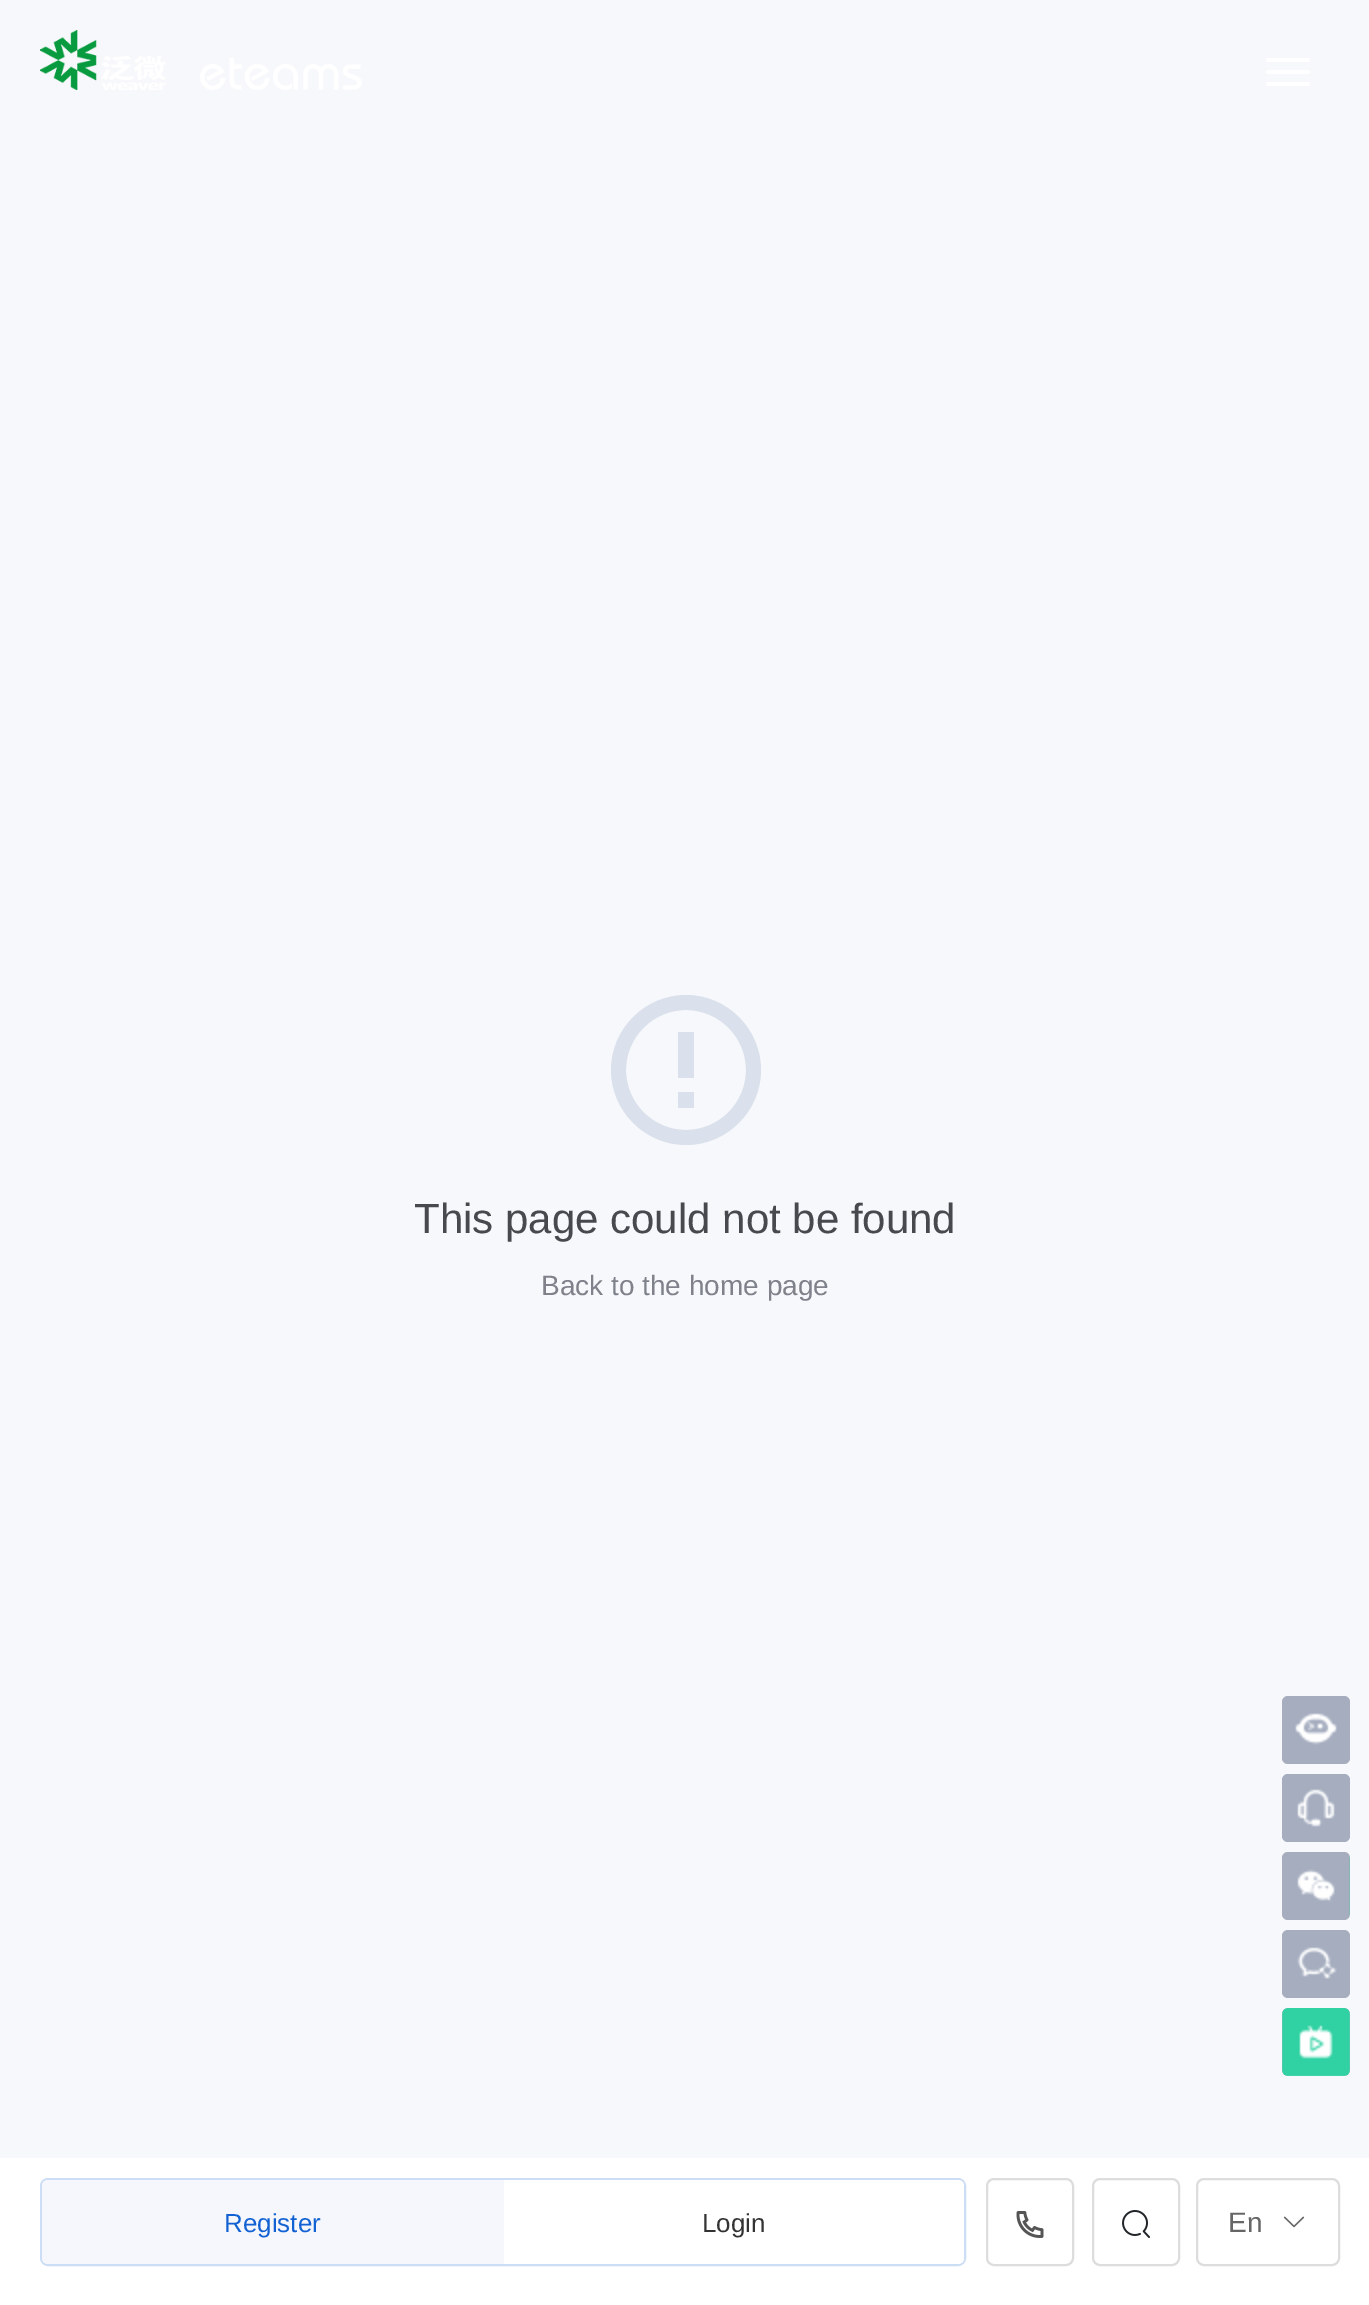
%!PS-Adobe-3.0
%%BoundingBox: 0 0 1369 2305
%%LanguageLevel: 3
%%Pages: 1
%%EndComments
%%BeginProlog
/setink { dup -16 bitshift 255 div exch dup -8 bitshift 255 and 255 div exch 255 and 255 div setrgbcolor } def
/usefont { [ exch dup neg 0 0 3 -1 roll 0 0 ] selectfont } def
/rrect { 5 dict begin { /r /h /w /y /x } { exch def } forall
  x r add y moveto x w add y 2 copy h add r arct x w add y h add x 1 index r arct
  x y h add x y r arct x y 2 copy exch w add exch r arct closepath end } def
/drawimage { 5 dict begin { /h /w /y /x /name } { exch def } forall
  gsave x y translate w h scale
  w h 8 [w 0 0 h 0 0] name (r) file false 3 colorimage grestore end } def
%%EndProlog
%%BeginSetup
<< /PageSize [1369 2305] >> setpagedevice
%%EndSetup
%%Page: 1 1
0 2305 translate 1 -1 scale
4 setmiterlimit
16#F7F8FB setink
0 0 1369 2305 rectfill
16#FFFFFF setink
0 2158 1369 147 rectfill
16#DBE1EC setink
678 1092 moveto 694 1092 lineto 694 1108 lineto 678 1108 lineto closepath 678 1032 moveto 694 1032 lineto 694 1078 lineto 678 1078 lineto closepath 686 995 moveto 645 995 611 1029 611 1070 curveto 611 1111 645 1145 686 1145 curveto 727 1145 761 1111 761 1070 curveto 761 1029 727 995 686 995 curveto closepath 686 1130 moveto 653 1130 626 1103 626 1070 curveto 626 1037 653 1010 686 1010 curveto 719 1010 746 1037 746 1070 curveto 746 1103 719 1130 686 1130 curveto closepath fill
/LiberationSans-Regular 42 usefont
16#47494E setink
414 1233 moveto (This page could not be found) show
/LiberationSans-Regular 28 usefont
16#7F828B setink
541 1295 moveto (Back to the home page) show
16#A5ADBF setink
1282 1696 68 68 6 rrect fill
(img1.raw) 1295 1713 42 32 drawimage
1282 1774 68 68 6 rrect fill
(img2.raw) 1297 1789 38 38 drawimage
1282 1852 68 68 6 rrect fill
(img3.raw) 1297 1855 53 62 drawimage
1282 1930 68 68 6 rrect fill
(img4.raw) 1297 1947 40 32 drawimage
1282 2008 68 68 6 rrect fill
(img5.raw) 1282 2008 68 68 drawimage
(img6.raw) 40 30 126 60 drawimage
(img7.raw) 200 58 162 32 drawimage
16#FFFFFF setink
1266 58 44 4 2 rrect fill
1266 70 44 4 2 rrect fill
1266 82 44 4 2 rrect fill
16#CCDDF6 setink
2 setlinewidth
41 2179 924 86 7 rrect stroke
16#F5F7FC setink
48 2180 moveto 504 2180 lineto 504 2264 lineto 48 2264 lineto 44.5 2264 42 2261.5 42 2258 curveto 42 2186 lineto 42 2182.5 44.5 2180 48 2180 curveto closepath fill
/LiberationSans-Regular 26 usefont
16#1262D3 setink
224 2232 moveto (Register) show
16#FFFFFF setink
504 2180 moveto 958 2180 lineto 961.5 2180 964 2182.5 964 2186 curveto 964 2258 lineto 964 2261.5 961.5 2264 958 2264 curveto 504 2264 lineto closepath fill
16#333333 setink
702 2232 moveto (Login) show
16#DDDDDD setink
987 2179 86 86 7 rrect stroke
(img8.raw) 1016 2211 28 27 drawimage
1093 2179 86 86 7 rrect stroke
(img9.raw) 1122 2210 28 28 drawimage
1197 2179 142 86 7 rrect stroke
/LiberationSans-Regular 28 usefont
16#666666 setink
1228 2232 moveto (En) show
(img10.raw) 1283 2216 22 12 drawimage
showpage
%%EOF
